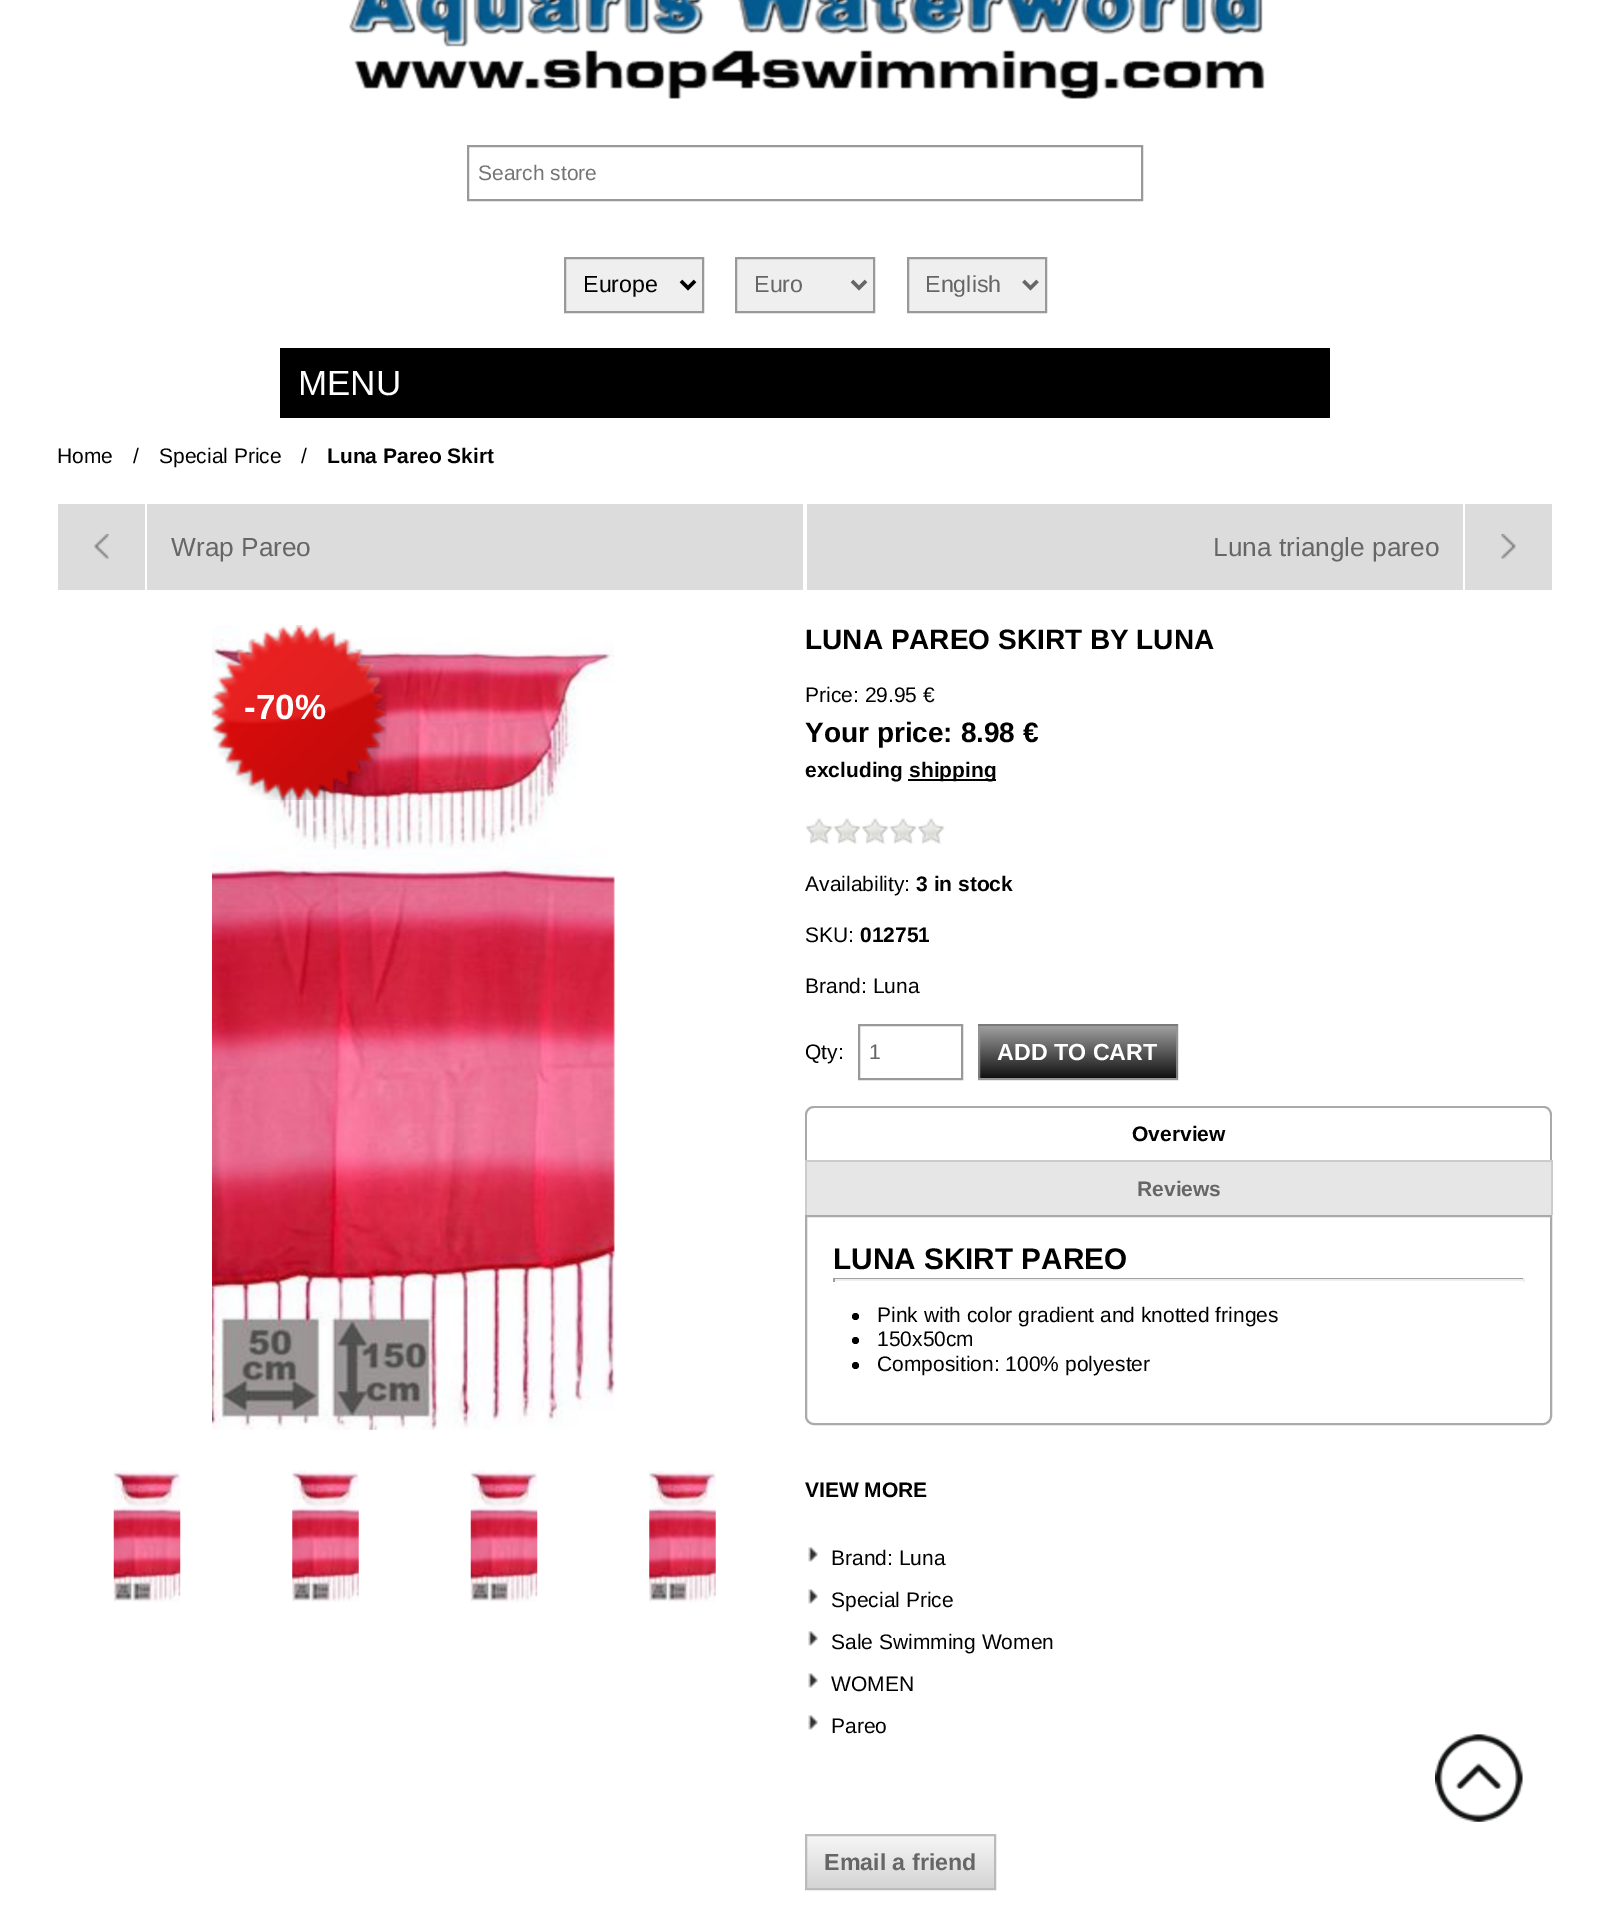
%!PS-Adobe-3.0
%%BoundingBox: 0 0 1609 1909
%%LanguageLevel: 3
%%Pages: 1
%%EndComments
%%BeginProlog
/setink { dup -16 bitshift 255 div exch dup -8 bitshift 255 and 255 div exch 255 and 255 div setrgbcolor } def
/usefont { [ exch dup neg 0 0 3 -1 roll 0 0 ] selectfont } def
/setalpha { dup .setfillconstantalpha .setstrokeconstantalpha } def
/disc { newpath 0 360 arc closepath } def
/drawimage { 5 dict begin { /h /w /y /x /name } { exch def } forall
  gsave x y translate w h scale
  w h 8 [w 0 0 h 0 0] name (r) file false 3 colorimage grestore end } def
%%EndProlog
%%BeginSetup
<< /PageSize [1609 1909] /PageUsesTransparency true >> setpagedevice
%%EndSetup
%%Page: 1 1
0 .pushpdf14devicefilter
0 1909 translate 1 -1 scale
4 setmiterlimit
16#FFFFFF setink
0 0 1609 1909 rectfill
(img1.raw) 349 0 916 99 drawimage
16#999999 setink
2 setlinewidth
468 146 674 54 rectstroke
/LiberationSans-Regular 21 usefont
16#757575 setink
478 180 moveto (Search store) show
16#EFEFEF setink
565 258 moveto 703 258 lineto 703 312 lineto 565 312 lineto closepath gsave fill grestore
16#999999 setink
stroke
16#000000 setink
3.5 setlinewidth
681 281 moveto 688 288 lineto 695 281 lineto stroke
/LiberationSans-Regular 23.25 usefont
583 292 moveto (Europe) show
16#EFEFEF setink
736 258 moveto 874 258 lineto 874 312 lineto 736 312 lineto closepath gsave fill grestore
16#999999 setink
2 setlinewidth
stroke
16#666666 setink
3.5 setlinewidth
852 281 moveto 859 288 lineto 866 281 lineto stroke
754 292 moveto (Euro) show
16#EFEFEF setink
908 258 moveto 1046 258 lineto 1046 312 lineto 908 312 lineto closepath gsave fill grestore
16#999999 setink
2 setlinewidth
stroke
16#666666 setink
3.5 setlinewidth
1023.5 281 moveto 1030.5 288 lineto 1037.5 281 lineto stroke
925 292 moveto (English) show
16#000000 setink
280 348 1050 70 rectfill
/LiberationSans-Regular 35 usefont
16#FFFFFF setink
298 395 moveto (MENU) show
/LiberationSans-Regular 21 usefont
16#000000 setink
[
    [(Home) 57 463]
    [(/) 133 463]
    [(Special Price) 159 463]
    [(/) 301 463]
] { aload pop moveto show } forall
/LiberationSans-Bold 21 usefont
327 463 moveto (Luna Pareo Skirt) show
16#DCDCDC setink
58 504 745 86 rectfill
(img2.raw) 94 534 15 25 drawimage
16#FFFFFF setink
145 504 2 86 rectfill
/LiberationSans-Regular 26.25 usefont
16#666666 setink
171 556 moveto (Wrap Pareo) show
16#DCDCDC setink
807 504 745 86 rectfill
16#666666 setink
1213 556 moveto (Luna triangle pareo) show
(img3.raw) 1501 534 15 25 drawimage
16#FFFFFF setink
1463 504 2 86 rectfill
(img4.raw) 212 626 403 804 drawimage
(img5.raw) 211 625 176 175 drawimage
/LiberationSans-Bold 35 usefont
244 719 moveto (-70%) show
(img6.raw) 113 1470 68 132 drawimage
(img7.raw) 292 1470 67 132 drawimage
(img6.raw) 470 1470 68 132 drawimage
(img7.raw) 649 1470 67 132 drawimage
/LiberationSans-Bold 28 usefont
16#000000 setink
805 649 moveto (LUNA PAREO SKIRT BY LUNA) show
/LiberationSans-Regular 21 usefont
805 702 moveto (Price: 29.95 €) show
/LiberationSans-Bold 28 usefont
805 742 moveto (Your price: 8.98 €) show
/LiberationSans-Bold 21 usefont
805 777 moveto (excluding) show
908 779 88 2 rectfill
909 777 moveto (shipping) show
(img8.raw) 805 817 140 27 drawimage
/LiberationSans-Regular 21 usefont
805 891 moveto (Availability:) show
/LiberationSans-Bold 21 usefont
916 891 moveto (3 in stock) show
/LiberationSans-Regular 21 usefont
805 942 moveto (SKU:) show
/LiberationSans-Bold 21 usefont
860 942 moveto (012751) show
/LiberationSans-Regular 21 usefont
805 993 moveto (Brand: Luna) show
805 1059 moveto (Qty:) show
16#999999 setink
2 setlinewidth
859 1025 103 54 rectstroke
16#666666 setink
869 1059 moveto (1) show
gsave 978 1024 moveto 1178 1024 lineto 1178 1026 lineto 978 1026 lineto closepath clip newpath
<< /ShadingType 2 /ColorSpace /DeviceRGB /Coords [1078 973 1078 1026] /Extend [true true] /Function << /FunctionType 2 /Domain [0 1] /C0 [0.627 0.627 0.627] /C1 [0.067 0.067 0.067] /N 1 >> >> shfill grestore
gsave 978 1026 moveto 1178 1026 lineto 1178 1078 lineto 978 1078 lineto closepath clip newpath
<< /ShadingType 2 /ColorSpace /DeviceRGB /Coords [1078 1026 1078 1078] /Extend [true true] /Function << /FunctionType 2 /Domain [0 1] /C0 [0.627 0.627 0.627] /C1 [0.067 0.067 0.067] /N 1 >> >> shfill grestore
gsave 978 1078 moveto 1178 1078 lineto 1178 1080 lineto 978 1080 lineto closepath clip newpath
<< /ShadingType 2 /ColorSpace /DeviceRGB /Coords [1078 1078 1078 1131] /Extend [true true] /Function << /FunctionType 2 /Domain [0 1] /C0 [0.627 0.627 0.627] /C1 [0.067 0.067 0.067] /N 1 >> >> shfill grestore
0.8 setalpha
16#949494 setink
979 1025 198 54 rectstroke
/LiberationSans-Bold 23.25 usefont
1 setalpha
16#FFFFFF setink
997 1060 moveto (ADD TO CART) show
16#AAAAAA setink
814 1106 moveto 1544 1106 lineto 1548 1106 1552 1110 1552 1115 curveto 1552 1160 lineto 805 1160 lineto 805 1115 lineto 805 1110 809 1106 814 1106 curveto closepath 814 1108 moveto 1544 1108 lineto 1547 1108 1550 1111 1550 1115 curveto 1550 1160 lineto 807 1160 lineto 807 1115 lineto 807 1111 810 1108 814 1108 curveto closepath eofill
/LiberationSans-Bold 21 usefont
16#000000 setink
1132 1141 moveto (Overview) show
[
    [807 1162 744 53 16#E6E6E6]
    [805 1160 747 2 16#CCCCCC]
    [1551 1160 2 55 16#CCCCCC]
    [805 1160 2 55 16#CCCCCC]
] { aload pop setink rectfill } forall
16#666666 setink
1137 1196 moveto (Reviews) show
16#AAAAAA setink
806 1216 moveto 1551 1216 lineto 1551 1416 lineto 1551 1420.5 1547.5 1424 1543 1424 curveto 814 1424 lineto 809.5 1424 806 1420.5 806 1416 curveto closepath stroke
/LiberationSans-Bold 29.75 usefont
16#000000 setink
833 1269 moveto (LUNA SKIRT PAREO) show
[
    [833 1278 691 1 16#9F9F9F]
    [1523 1278 2 4 16#EEEEEE]
    [833 1279 691 2 16#EEEEEE]
    [833 1278 2 4 16#9F9F9F]
] { aload pop setink rectfill } forall
16#000000 setink
855.5 1316.5 3.5 disc fill
/LiberationSans-Regular 21 usefont
877 1322 moveto (Pink with color gradient and knotted fringes) show
855.5 1340.5 3.5 disc fill
877 1346 moveto (150x50cm) show
855.5 1365.5 3.5 disc fill
877 1371 moveto (Composition: 100% polyester) show
/LiberationSans-Bold 21 usefont
805 1497 moveto (VIEW MORE) show
(img9.raw) 808 1547 10 15 drawimage
/LiberationSans-Regular 21 usefont
831 1565 moveto (Brand: Luna) show
(img10.raw) 808 1589 10 15 drawimage
831 1607 moveto (Special Price) show
(img10.raw) 808 1631 10 15 drawimage
831 1649 moveto (Sale Swimming Women) show
(img10.raw) 808 1673 10 15 drawimage
831 1691 moveto (WOMEN) show
(img9.raw) 808 1715 10 15 drawimage
831 1733 moveto (Pareo) show
gsave 807 1836 moveto 994 1836 lineto 994 1888 lineto 807 1888 lineto closepath clip newpath
<< /ShadingType 2 /ColorSpace /DeviceRGB /Coords [900 1836 900 1888] /Extend [true true] /Function << /FunctionType 2 /Domain [0 1] /C0 [0.965 0.965 0.965] /C1 [0.831 0.831 0.831] /N 1 >> >> shfill grestore
16#BBBBBB setink
806 1835 189 54 rectstroke
/LiberationSans-Bold 23.25 usefont
16#666666 setink
824 1870 moveto (Email a friend) show
(img11.raw) 1435 1734 88 88 drawimage
.poppdf14devicefilter showpage
%%EOF
